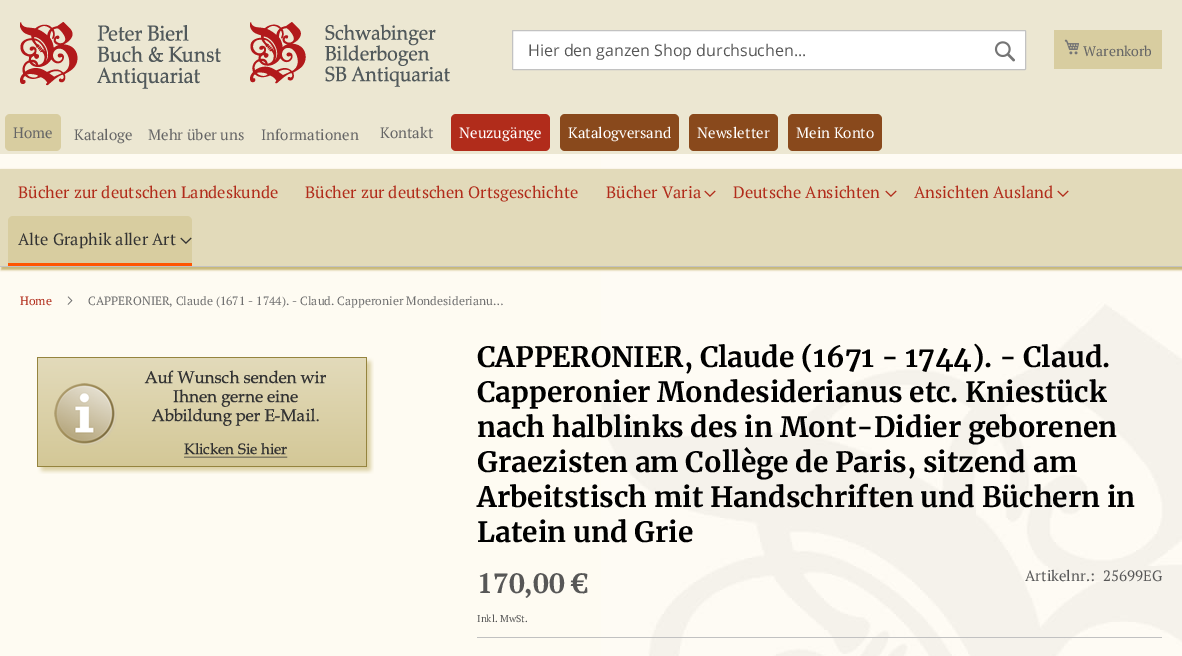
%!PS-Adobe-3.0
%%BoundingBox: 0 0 1182 656
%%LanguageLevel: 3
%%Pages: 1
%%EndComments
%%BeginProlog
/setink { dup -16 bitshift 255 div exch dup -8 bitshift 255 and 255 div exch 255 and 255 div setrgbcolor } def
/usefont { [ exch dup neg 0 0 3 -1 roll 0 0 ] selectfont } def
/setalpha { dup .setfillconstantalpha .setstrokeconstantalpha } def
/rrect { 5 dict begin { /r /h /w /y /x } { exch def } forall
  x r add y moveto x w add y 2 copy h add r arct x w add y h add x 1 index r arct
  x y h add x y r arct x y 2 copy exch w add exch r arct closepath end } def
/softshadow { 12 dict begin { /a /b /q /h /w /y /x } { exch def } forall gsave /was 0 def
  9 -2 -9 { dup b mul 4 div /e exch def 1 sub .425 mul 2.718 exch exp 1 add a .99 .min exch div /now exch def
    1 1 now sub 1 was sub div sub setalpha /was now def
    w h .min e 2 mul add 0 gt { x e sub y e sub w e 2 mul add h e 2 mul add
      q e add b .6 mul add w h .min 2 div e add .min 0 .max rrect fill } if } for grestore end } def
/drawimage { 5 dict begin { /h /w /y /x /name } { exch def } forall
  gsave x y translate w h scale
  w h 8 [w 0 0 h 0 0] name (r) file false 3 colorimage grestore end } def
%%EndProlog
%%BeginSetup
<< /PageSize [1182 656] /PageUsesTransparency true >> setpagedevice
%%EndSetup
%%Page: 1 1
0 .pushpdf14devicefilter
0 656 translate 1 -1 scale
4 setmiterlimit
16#FEFBF2 setink
0 0 1182 656 rectfill
(img1.raw) 601 154 581 502 drawimage
16#ECE7D2 setink
0 0 1182 154 rectfill
(img2.raw) 20 22 430 67 drawimage
16#FFFFFF setink
512.5 30.5 513 39 0.5 rrect gsave fill grestore
16#C2C2C2 setink
stroke
/OpenSans-Regular 16 usefont
16#575757 setink
528 56 moveto (Hier den ganzen Shop durchsuchen...) show
(img3.raw) 994 41 21 21 drawimage
16#D8CDA0 setink
1054 30 108 39 rectfill
(img4.raw) 1064 39 15 16 drawimage
/PTSerif-Regular 14 usefont
16#666666 setink
1083 56 moveto (Warenkorb) show
16#D8CDA0 setink
5 114 56 37 5 rrect fill
/PTSerif-Regular 15 usefont
16#666666 setink
[
    [(Home) 13 138]
    [(Kataloge) 74 140]
    [(Mehr über uns) 148 140]
    [(Informationen) 261 140]
    [(Kontakt) 380 138]
] { aload pop moveto show } forall
16#B12C1B setink
451 114 99 37 5 rrect fill
16#FFFFFF setink
459 138 moveto (Neuzugänge) show
16#89491C setink
560 114 119 37 5 rrect fill
16#FFFFFF setink
568 138 moveto (Katalogversand) show
16#89491C setink
689 114 89 37 5 rrect fill
16#FFFFFF setink
697 138 moveto (Newsletter) show
16#89491C setink
788 114 94 37 5 rrect fill
16#FFFFFF setink
796 138 moveto (Mein Konto) show
16#C6B675 setink
1 170 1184 100 0 1 1 softshadow
16#E2DABA setink
0 169 1182 97 rectfill
16#C2C2C2 setink
0 266 1182 1 rectfill
/PTSerif-Regular 16.5 usefont
16#B12C1B setink
[
    [(Bücher zur deutschen Landeskunde) 18 198]
    [(Bücher zur deutschen Ortsgeschichte) 305 198]
    [(Bücher Varia) 606 198]
] { aload pop moveto show } forall
(img5.raw) 704 190 12 7 drawimage
733 198 moveto (Deutsche Ansichten) show
(img5.raw) 885 190 12 7 drawimage
914 198 moveto (Ansichten Ausland) show
(img5.raw) 1057 190 12 7 drawimage
16#D8CDA0 setink
8 216 184 50 5 rrect fill
16#FF5501 setink
8 263 184 3 rectfill
16#333333 setink
18 245 moveto (Alte Graphik aller Art) show
(img6.raw) 180 237 12 7 drawimage
/PTSerif-Regular 12 usefont
16#B12C1B setink
20 305 moveto (Home) show
(img7.raw) 67 296 6 9 drawimage
16#707070 setink
88 305 moveto (CAPPERONIER, Claude \(1671 - 1744\). - Claud. Capperonier Mondesiderianu…) show
(img8.raw) 37 357 337 117 drawimage
/Merriweather-Bold 28 usefont
16#000000 setink
[
    [(CAPPERONIER, Claude \(1671 - 1744\). - Claud.) 477 367]
    [(Capperonier Mondesiderianus etc. Kniestück) 477 402]
    [(nach halblinks des in Mont-Didier geborenen) 477 437]
    [(Graezisten am Collège de Paris, sitzend am) 477 472]
    [(Arbeitstisch mit Handschriften und Büchern in) 477 507]
    [(Latein und Grie) 477 542]
] { aload pop moveto show } forall
16#C1C1C1 setink
477 637 685 1 rectfill
/PTSerif-Bold 28 usefont
16#575757 setink
477 593 moveto (170,00 €) show
/PTSerif-Regular 10 usefont
477 622 moveto (Inkl. MwSt.) show
/PTSerif-Regular 15 usefont
1025 581 moveto (Artikelnr.:) show
1103 581 moveto (25699EG) show
.poppdf14devicefilter showpage
%%EOF
